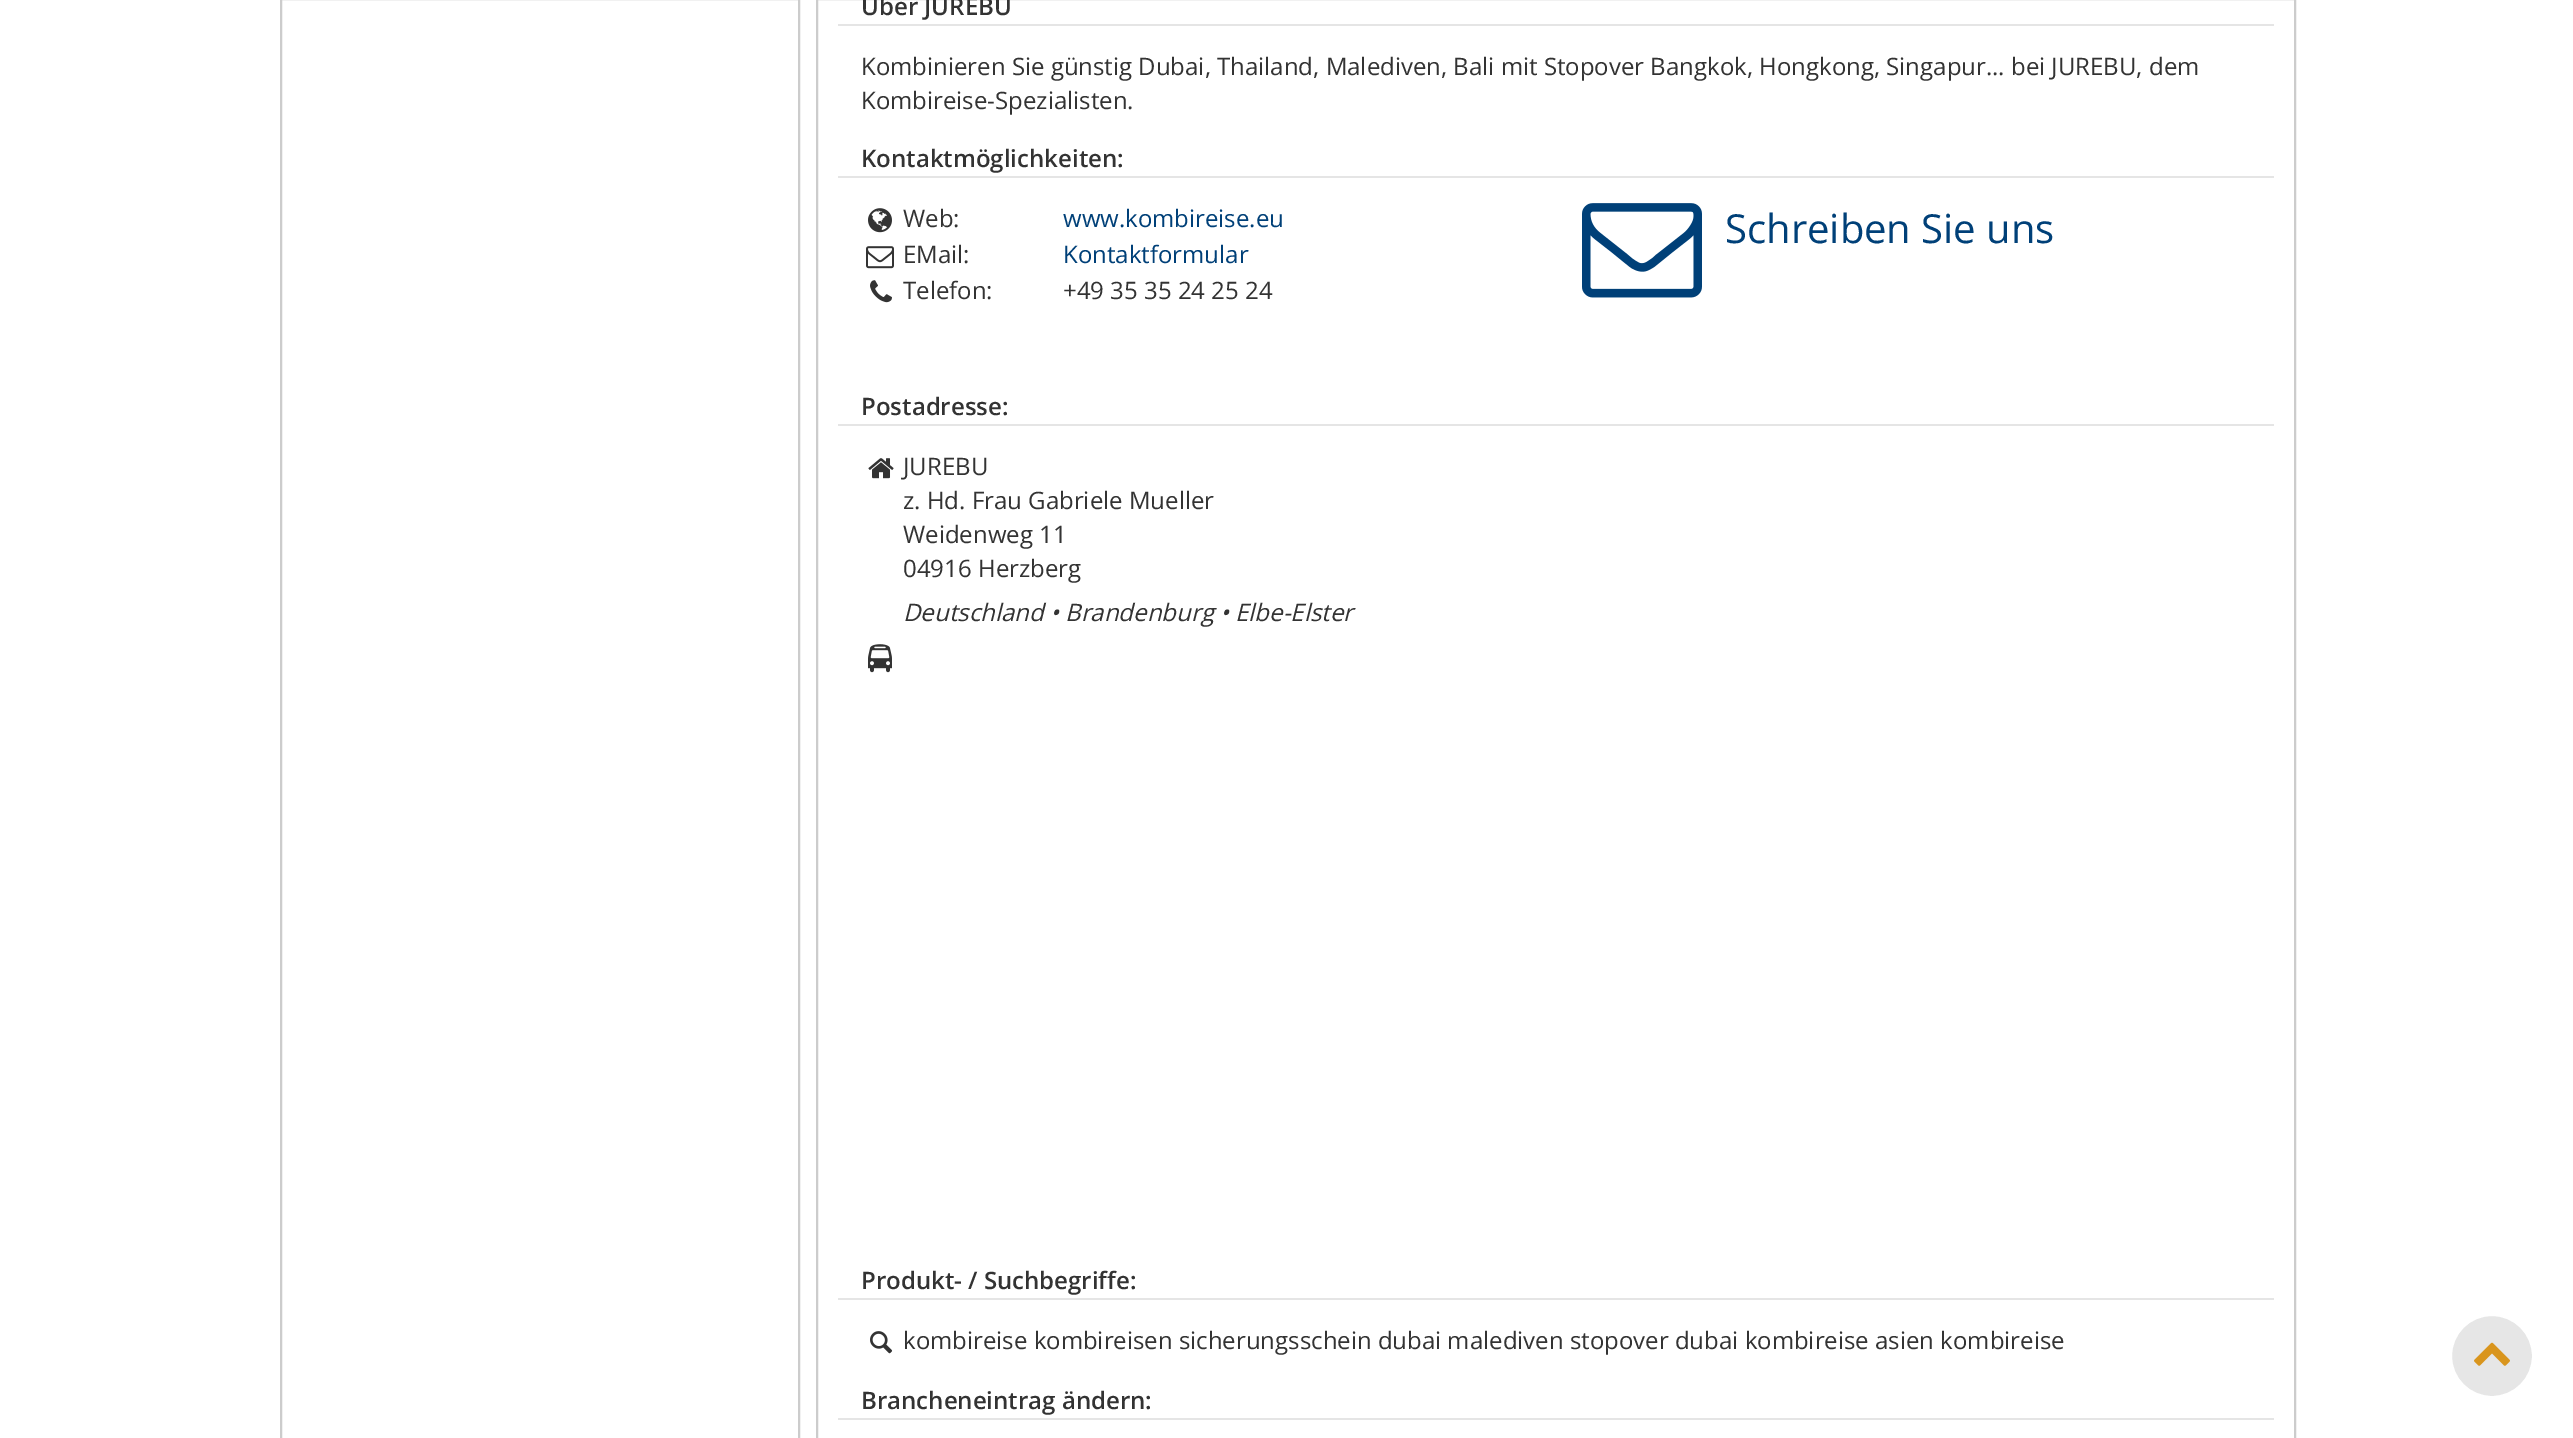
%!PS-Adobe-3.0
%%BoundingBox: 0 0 2573 1438
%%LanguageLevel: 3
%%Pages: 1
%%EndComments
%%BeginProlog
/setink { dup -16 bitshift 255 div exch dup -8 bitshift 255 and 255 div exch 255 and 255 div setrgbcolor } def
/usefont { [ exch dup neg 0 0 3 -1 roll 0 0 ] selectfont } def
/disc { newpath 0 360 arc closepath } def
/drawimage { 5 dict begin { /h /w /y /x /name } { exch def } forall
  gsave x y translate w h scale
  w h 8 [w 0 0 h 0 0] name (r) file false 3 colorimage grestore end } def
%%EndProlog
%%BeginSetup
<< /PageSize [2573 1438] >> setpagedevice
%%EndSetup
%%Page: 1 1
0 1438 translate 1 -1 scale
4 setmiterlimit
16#FFFFFF setink
0 0 2573 1438 rectfill
16#CCCCCC setink
2 setlinewidth
281 -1 518 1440 rectstroke
817 -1 1478 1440 rectstroke
/OpenSans-SemiBold 24 usefont
16#333333 setink
861 15 moveto (Über JUREBU) show
16#E5E5E5 setink
838 24 1436 2 rectfill
/OpenSans-Regular 24 usefont
16#333333 setink
861 75 moveto (Kombinieren Sie günstig Dubai, Thailand, Malediven, Bali mit Stopover Bangkok, Hongkong, Singapur... bei JUREBU, dem) show
861 109 moveto (Kombireise-Spezialisten.) show
/OpenSans-SemiBold 24 usefont
861 167 moveto (Kontaktmöglichkeiten:) show
16#E5E5E5 setink
838 176 1436 2 rectfill
(img1.raw) 868 208 24 25 drawimage
/OpenSans-Regular 24 usefont
16#333333 setink
903 227 moveto (Web:) show
16#004078 setink
1063 227 moveto (www.kombireise.eu) show
(img2.raw) 866 246 28 23 drawimage
16#333333 setink
903 263 moveto (EMail:) show
16#004078 setink
1063 263 moveto (Kontaktformular) show
(img3.raw) 870 280 22 23 drawimage
16#333333 setink
903 299 moveto (Telefon:) show
1063 299 moveto (+49 35 35 24 25 24) show
(img4.raw) 1582 203 120 95 drawimage
/OpenSans-Regular 40 usefont
16#004078 setink
1725 243 moveto (Schreiben Sie uns) show
/OpenSans-SemiBold 24 usefont
16#333333 setink
861 415 moveto (Postadresse:) show
16#E5E5E5 setink
838 424 1436 2 rectfill
(img5.raw) 868 458 26 21 drawimage
/OpenSans-Regular 24 usefont
16#333333 setink
[
    [(JUREBU) 903 475]
    [(z. Hd. Frau Gabriele Mueller) 903 509]
    [(Weidenweg 11) 903 543]
    [(04916 Herzberg) 903 577]
] { aload pop moveto show } forall
/OpenSans-Italic 24 usefont
903 621 moveto (Deutschland • Brandenburg • Elbe-Elster) show
(img6.raw) 868 644 24 29 drawimage
/OpenSans-SemiBold 24 usefont
861 1289 moveto (Produkt- / Suchbegriffe:) show
16#E5E5E5 setink
838 1298 1436 2 rectfill
(img7.raw) 870 1331 23 23 drawimage
/OpenSans-Regular 24 usefont
16#333333 setink
903 1349 moveto (kombireise kombireisen sicherungsschein dubai malediven stopover dubai kombireise asien kombireise) show
/OpenSans-SemiBold 24 usefont
861 1409 moveto (Brancheneintrag ändern:) show
16#E5E5E5 setink
838 1418 1436 2 rectfill
16#E6E6E6 setink
2492 1356 41 disc gsave fill grestore
16#FFFFFF setink
stroke
(img8.raw) 2474 1342 36 24 drawimage
showpage
%%EOF
